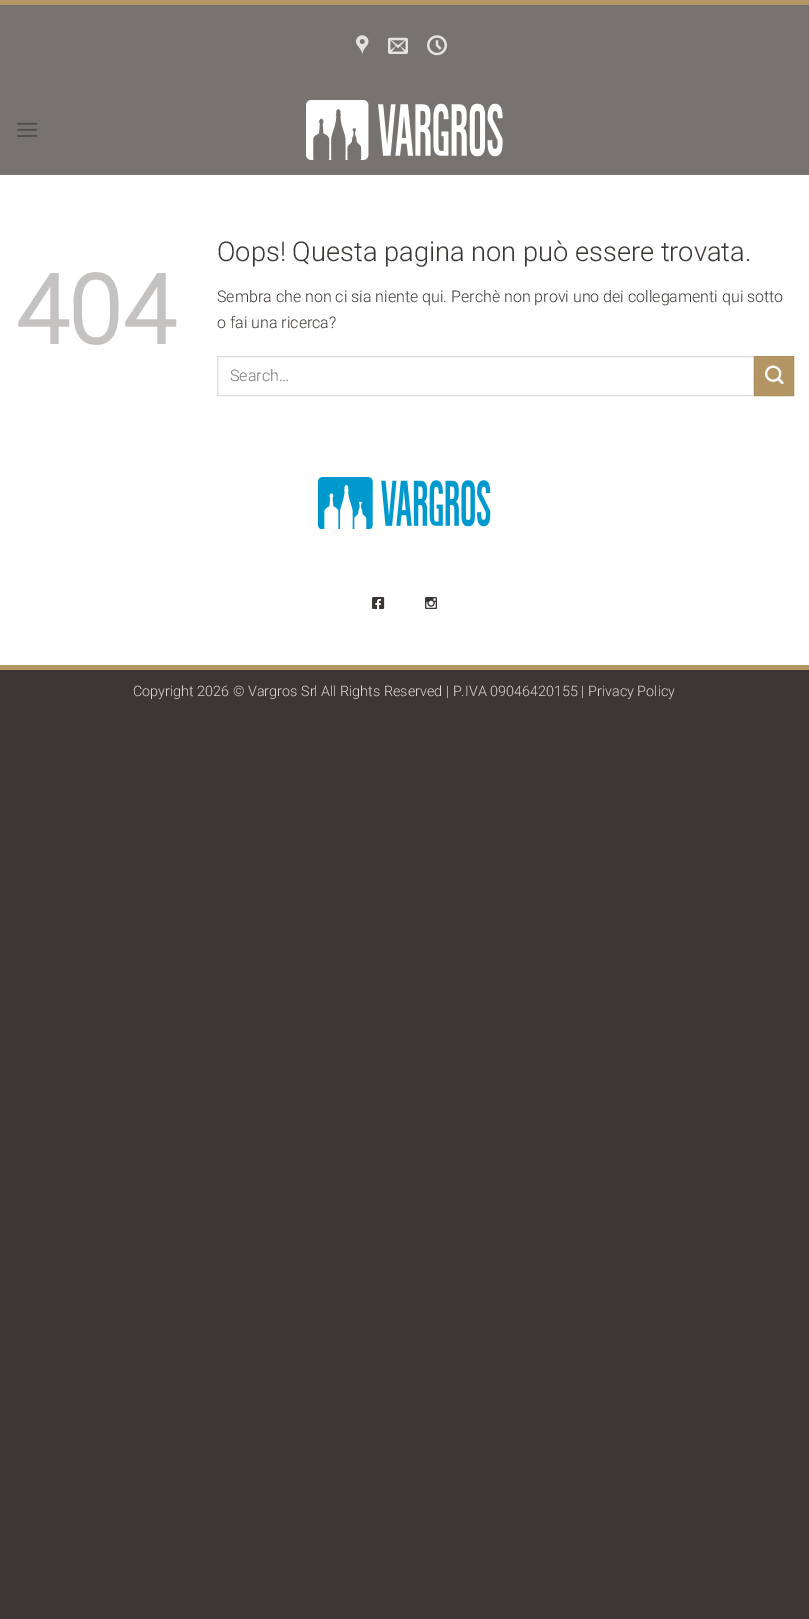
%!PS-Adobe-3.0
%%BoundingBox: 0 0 809 1619
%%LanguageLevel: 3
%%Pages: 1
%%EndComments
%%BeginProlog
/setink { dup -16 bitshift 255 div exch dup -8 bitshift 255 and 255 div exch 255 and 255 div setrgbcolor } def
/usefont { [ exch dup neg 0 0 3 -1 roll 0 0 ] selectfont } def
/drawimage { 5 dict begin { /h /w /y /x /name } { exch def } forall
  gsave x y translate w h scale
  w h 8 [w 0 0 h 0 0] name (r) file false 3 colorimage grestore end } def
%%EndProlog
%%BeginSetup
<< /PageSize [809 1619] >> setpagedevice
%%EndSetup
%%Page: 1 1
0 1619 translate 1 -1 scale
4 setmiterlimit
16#3C3734 setink
0 0 809 1619 rectfill
[
    [0 0 809 5 16#B49664]
    [0 175 809 490 16#FFFFFF]
    [0 5 809 170 16#777371]
] { aload pop setink rectfill } forall
(img1.raw) 356 35 13 20 drawimage
(img2.raw) 388 37 20 17 drawimage
(img3.raw) 427 35 20 21 drawimage
(img4.raw) 17 122 21 15 drawimage
(img5.raw) 306 100 197 60 drawimage
/Roboto-Bold 96 usefont
16#C5C3C2 setink
15 344 moveto (404) show
/Roboto-Light 27.25 usefont
16#3C3734 setink
217 261 moveto (Oops! Questa pagina non può essere trovata.) show
/Roboto-Light 16 usefont
217 302 moveto (Sembra che non ci sia niente qui. Perchè non provi uno dei collegamenti qui sotto) show
217 328 moveto (o fai una ricerca?) show
16#DDDDDD setink
217.5 356.5 536 39 rectstroke
16#757575 setink
230 381 moveto (Search…) show
16#B49664 setink
754.5 356.5 moveto 793.5 356.5 lineto 793.5 395.5 lineto 754.5 395.5 lineto closepath gsave fill grestore
16#AB8F5F setink
stroke
(img6.raw) 765 365 19 20 drawimage
(img7.raw) 318 477 173 52 drawimage
(img8.raw) 372 597 13 12 drawimage
(img9.raw) 425 597 12 12 drawimage
16#B49664 setink
0 665 809 5 rectfill
/Roboto-Light 14.4 usefont
16#D8D7D6 setink
133 696 moveto (Copyright 2026 © Vargros Srl All Rights Reserved | P.IVA 09046420155 | Privacy Policy) show
showpage
%%EOF
